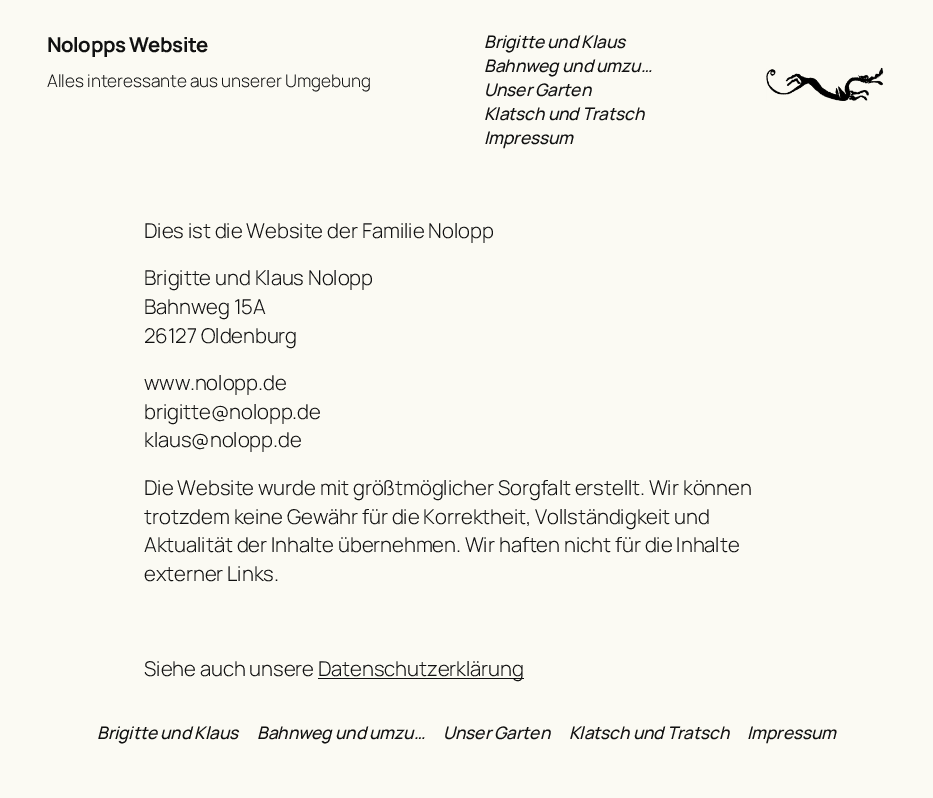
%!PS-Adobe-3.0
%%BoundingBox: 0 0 933 798
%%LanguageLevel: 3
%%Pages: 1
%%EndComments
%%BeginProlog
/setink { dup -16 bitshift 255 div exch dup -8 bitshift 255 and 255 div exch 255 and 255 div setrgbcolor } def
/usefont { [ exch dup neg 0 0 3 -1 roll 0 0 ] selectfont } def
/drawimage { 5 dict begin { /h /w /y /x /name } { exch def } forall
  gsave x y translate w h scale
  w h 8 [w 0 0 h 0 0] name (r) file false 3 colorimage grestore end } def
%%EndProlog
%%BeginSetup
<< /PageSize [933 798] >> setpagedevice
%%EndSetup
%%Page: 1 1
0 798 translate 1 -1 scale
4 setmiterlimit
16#FBFAF3 setink
0 0 933 798 rectfill
/Manrope-Bold 20.4 usefont
16#111111 setink
47 52 moveto -0.5 0 (Nolopps Website) ashow
/Manrope-Light 17.25 usefont
47 87 moveto -0.1 0 (Alles interessante aus unserer Umgebung) ashow
/Manrope-MediumItalic 17.25 usefont
484 48 moveto -0.1 0 (Brigitte und Klaus) ashow
484 72 moveto -0.1 0 (Bahnweg und umzu…) ashow
484 96 moveto -0.1 0 (Unser Garten) ashow
484 120 moveto -0.1 0 (Klatsch und Tratsch) ashow
484 144 moveto -0.1 0 (Impressum) ashow
(img1.raw) 766 67 118 34 drawimage
/Manrope-Light 20.4 usefont
144 238 moveto -0.1 0 (Dies ist die Website der Familie Nolopp) ashow
144 285 moveto -0.1 0 (Brigitte und Klaus Nolopp) ashow
144 314 moveto -0.1 0 (Bahnweg 15A) ashow
144 343 moveto -0.1 0 (26127 Oldenburg) ashow
144 390 moveto -0.1 0 (www.nolopp.de) ashow
144 419 moveto -0.1 0 (brigitte@nolopp.de) ashow
144 447 moveto -0.1 0 (klaus@nolopp.de) ashow
144 495 moveto -0.1 0 (Die Website wurde mit größtmöglicher Sorgfalt erstellt. Wir können) ashow
144 524 moveto -0.1 0 (trotzdem keine Gewähr für die Korrektheit, Vollständigkeit und) ashow
144 552 moveto -0.1 0 (Aktualität der Inhalte übernehmen. Wir haften nicht für die Inhalte) ashow
144 581 moveto -0.1 0 (externer Links.) ashow
144 676 moveto -0.1 0 (Siehe auch unsere) ashow
318 678 206 1 rectfill
318 676 moveto -0.1 0 (Datenschutzerklärung) ashow
/Manrope-MediumItalic 17.25 usefont
97 739 moveto -0.1 0 (Brigitte und Klaus) ashow
257 739 moveto -0.1 0 (Bahnweg und umzu…) ashow
443 739 moveto -0.1 0 (Unser Garten) ashow
569 739 moveto -0.1 0 (Klatsch und Tratsch) ashow
747 739 moveto -0.1 0 (Impressum) ashow
showpage
%%EOF
